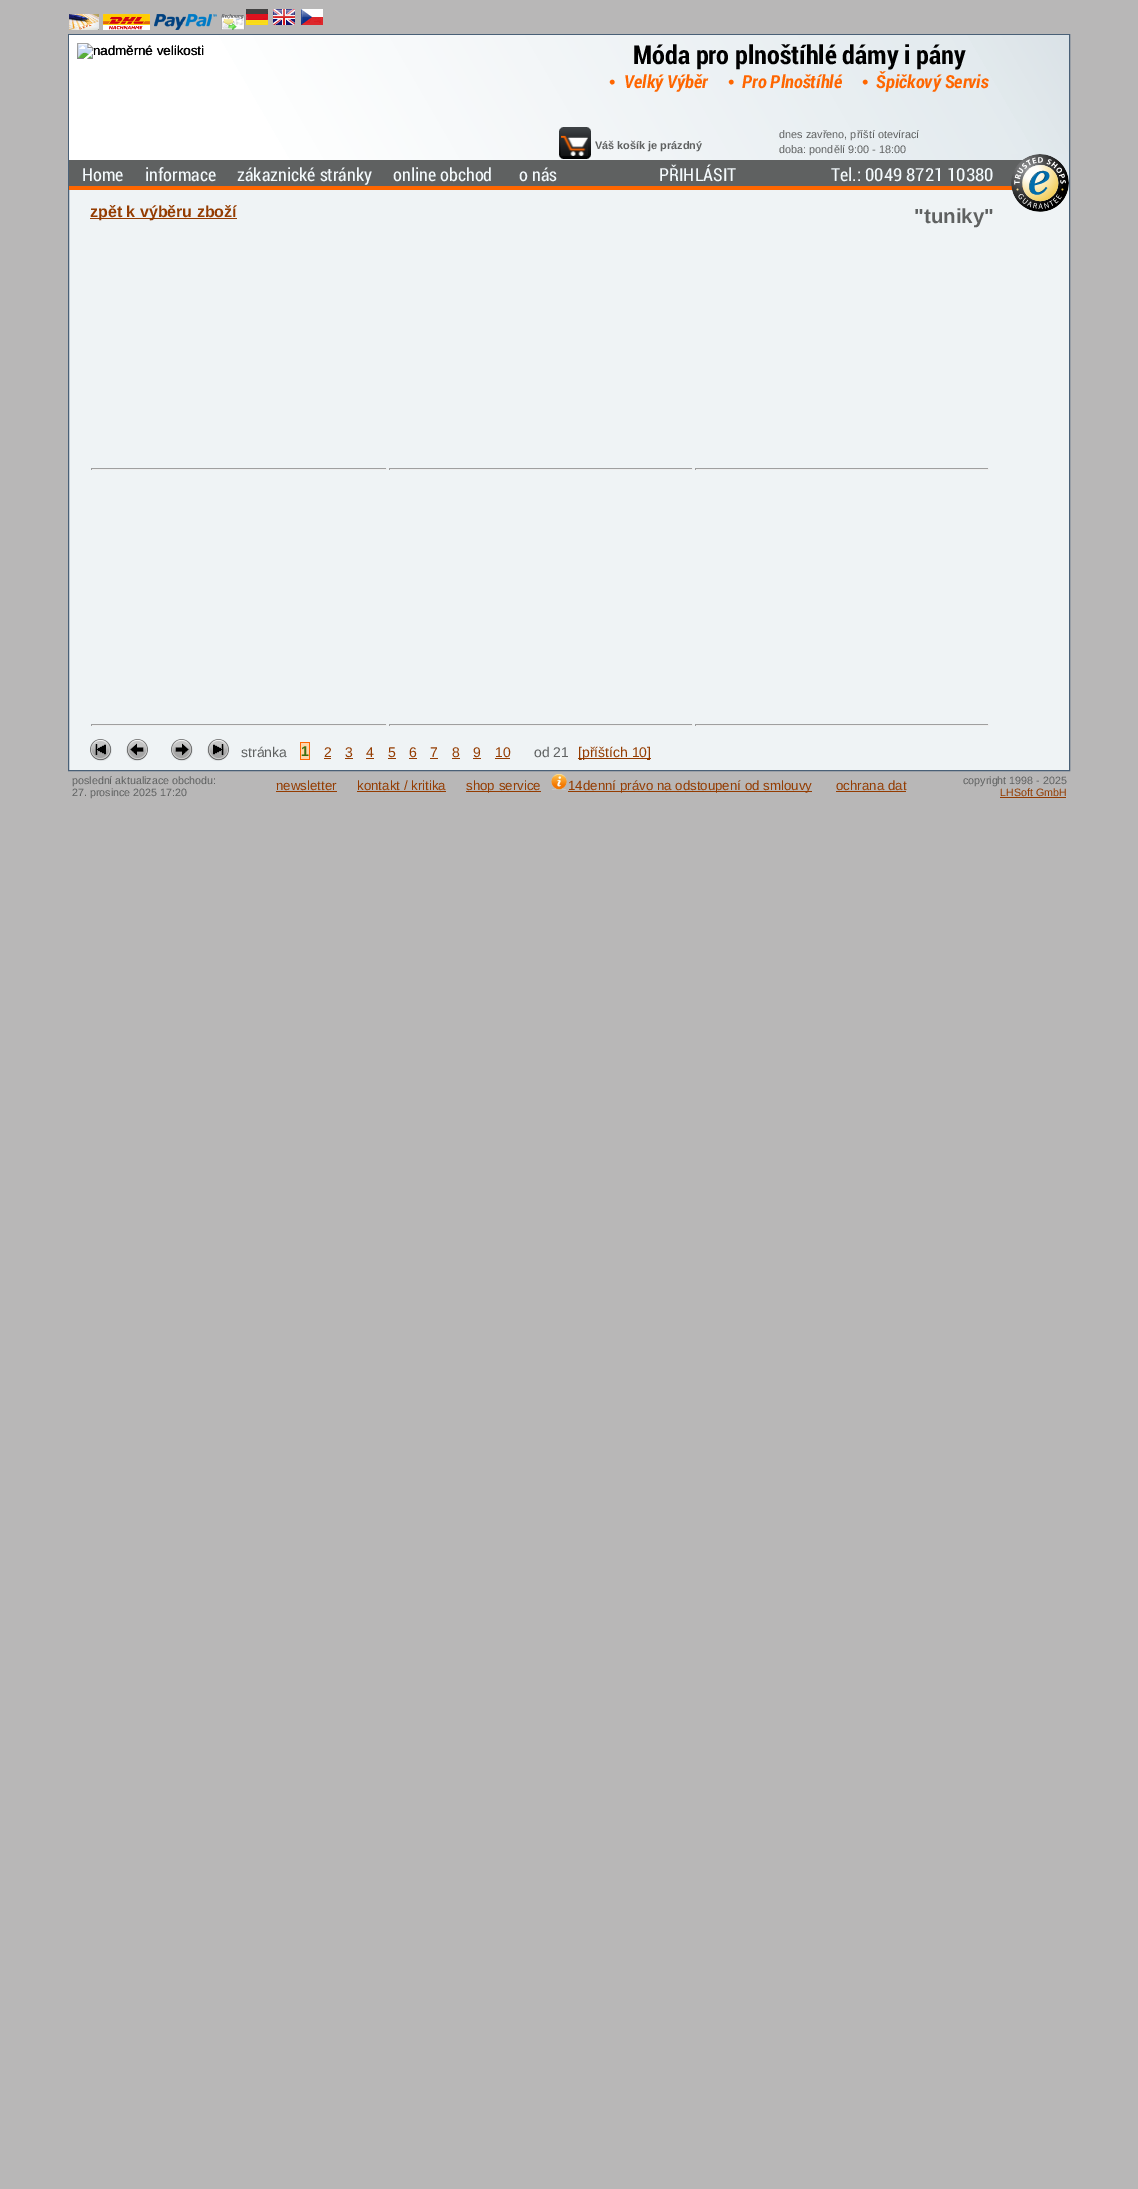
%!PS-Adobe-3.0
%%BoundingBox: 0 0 1138 2189
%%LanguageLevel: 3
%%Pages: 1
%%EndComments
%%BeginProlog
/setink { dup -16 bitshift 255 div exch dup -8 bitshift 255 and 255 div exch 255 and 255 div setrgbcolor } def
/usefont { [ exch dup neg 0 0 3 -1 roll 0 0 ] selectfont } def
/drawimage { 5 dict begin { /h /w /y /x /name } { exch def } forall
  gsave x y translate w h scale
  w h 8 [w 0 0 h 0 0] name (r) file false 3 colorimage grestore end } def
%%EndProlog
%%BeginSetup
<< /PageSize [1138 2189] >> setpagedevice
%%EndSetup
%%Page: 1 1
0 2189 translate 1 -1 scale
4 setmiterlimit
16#B8B7B7 setink
0 0 1138 2189 rectfill
(img1.raw) 69 14 30 16 drawimage
(img2.raw) 103 14 47 16 drawimage
(img3.raw) 154 14 63 16 drawimage
(img4.raw) 221 14 24 16 drawimage
(img5.raw) 246 9 22 16 drawimage
(img6.raw) 273 9 22 16 drawimage
(img7.raw) 301 9 22 16 drawimage
16#EFF3F5 setink
69 190 1000 580 rectfill
16#496077 setink
68.5 34.5 1001 736 rectstroke
gsave 69 35 moveto 1069 35 lineto 1069 190 lineto 69 190 lineto closepath clip newpath
<< /ShadingType 2 /ColorSpace /DeviceRGB /Coords [160 348 978 -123] /Extend [true true] /Function << /FunctionType 3 /Domain [0 1] /Functions [<< /FunctionType 2 /Domain [0 1] /C0 [1 1 1] /C1 [1 1 1] /N 1 >> << /FunctionType 2 /Domain [0 1] /C0 [1 1 1] /C1 [0.89 0.918 0.933] /N 1 >> << /FunctionType 2 /Domain [0 1] /C0 [0.89 0.918 0.933] /C1 [0.855 0.886 0.906] /N 1 >>] /Bounds [0.2 0.9] /Encode [0 1 0 1 0 1] >> >> shfill grestore
(img8.raw) 77 43 127 16 drawimage
/LiberationSans-Regular 13.3 usefont
16#000000 setink
93 55 moveto (nadměrné velikosti) show
/Roboto-Bold 26 usefont
633 64 moveto (Móda pro plnoštíhlé dámy i pány) show
/LiberationSerif-BoldItalic 18 usefont
16#FF6600 setink
609 88 moveto (•) show
/Roboto-BoldItalic 18 usefont
624 88 moveto (Velký Výběr) show
/LiberationSerif-BoldItalic 18 usefont
728 88 moveto (•) show
/Roboto-BoldItalic 18 usefont
742 88 moveto (Pro Plnoštíhlé) show
/LiberationSerif-BoldItalic 18 usefont
862 88 moveto (•) show
/Roboto-BoldItalic 18 usefont
876 88 moveto (Špičkový Servis) show
(img9.raw) 559 127 32 32 drawimage
/LiberationSans-Bold 10.9 usefont
16#5F6161 setink
595 149 moveto (Váš košík je prázdný) show
/LiberationSans-Regular 10.9 usefont
779 138 moveto (dnes zavřeno, příští otevírací) show
779 153 moveto (doba: pondělí 9:00 - 18:00) show
69 160 960 26 rectfill
16#FF6600 setink
69 186 960 4 rectfill
/Roboto-Regular 18 usefont
16#F4FAFD setink
[
    [(Home) 82 181]
    [(informace) 145 181]
    [(zákaznické stránky) 237 181]
    [(online obchod) 393 181]
    [(o nás) 519 181]
    [(PŘIHLÁSIT) 659 181]
    [(Tel.: 0049 8721 10380) 831 181]
] { aload pop moveto show } forall
(img10.raw) 1011 154 58 58 drawimage
16#943C01 setink
90 218 147 1 rectfill
/LiberationSans-Bold 16 usefont
90 217 moveto (zpět k výběru zboží) show
[
    [91 468 296 1 16#9F9F9F]
    [386 468 1 2 16#EEEEEE]
    [91 469 296 1 16#EEEEEE]
    [91 468 1 2 16#9F9F9F]
    [389 468 304 1 16#9F9F9F]
    [692 468 1 2 16#EEEEEE]
    [389 469 304 1 16#EEEEEE]
    [389 468 1 2 16#9F9F9F]
    [695 468 294 1 16#9F9F9F]
    [988 468 1 2 16#EEEEEE]
    [695 469 294 1 16#EEEEEE]
    [695 468 1 2 16#9F9F9F]
    [91 724 296 1 16#9F9F9F]
    [386 724 1 2 16#EEEEEE]
    [91 725 296 1 16#EEEEEE]
    [91 724 1 2 16#9F9F9F]
    [389 724 304 1 16#9F9F9F]
    [692 724 1 2 16#EEEEEE]
    [389 725 304 1 16#EEEEEE]
    [389 724 1 2 16#9F9F9F]
    [695 724 294 1 16#9F9F9F]
    [988 724 1 2 16#EEEEEE]
    [695 725 294 1 16#EEEEEE]
    [695 724 1 2 16#9F9F9F]
] { aload pop setink rectfill } forall
(img11.raw) 90 739 22 22 drawimage
(img12.raw) 126 739 22 22 drawimage
(img13.raw) 171 739 22 22 drawimage
(img14.raw) 207 739 22 22 drawimage
/LiberationSans-Regular 14 usefont
16#5F6161 setink
241 757 moveto (stránka) show
[
    [301 743 8 16 16#FFD5AA]
    [300 742 10 1 16#FF6600]
    [309 742 1 18 16#FF6600]
    [300 759 10 1 16#FF6600]
    [300 742 1 18 16#FF6600]
] { aload pop setink rectfill } forall
/LiberationSans-Bold 14 usefont
16#3E6F10 setink
301 756 moveto (1) show
/LiberationSans-Regular 14 usefont
16#943C01 setink
324 757 moveto (2) show
324 758 7 1 rectfill
345 757 moveto (3) show
345 758 8 1 rectfill
366 757 moveto (4) show
366 758 8 1 rectfill
388 757 moveto (5) show
388 758 8 1 rectfill
409 757 moveto (6) show
409 758 8 1 rectfill
430 757 moveto (7) show
430 758 8 1 rectfill
452 757 moveto (8) show
452 758 8 1 rectfill
473 757 moveto (9) show
473 758 8 1 rectfill
495 757 moveto (10) show
495 758 15 1 rectfill
16#5F6161 setink
534 757 moveto (od 21) show
16#943C01 setink
578 758 73 1 rectfill
578 757 moveto ([příštích 10]) show
/LiberationSans-Bold 20.5 usefont
16#5F6161 setink
914 223 moveto ("tuniky") show
/LiberationSans-Regular 10.7 usefont
72 784 moveto (poslední aktualizace obchodu:) show
72 796 moveto (27. prosince 2025 17:20) show
/LiberationSans-Regular 13.3 usefont
16#943C01 setink
276 790 moveto (newsletter) show
276 791 61 1 rectfill
357 790 moveto (kontakt / kritika) show
357 791 89 1 rectfill
466 791 75 1 rectfill
466 790 moveto (shop service) show
(img15.raw) 551 774 16 16 drawimage
568 791 244 1 rectfill
568 790 moveto (14denní právo na odstoupení od smlouvy) show
836 790 moveto (ochrana dat) show
836 791 70 1 rectfill
/LiberationSans-Regular 10.7 usefont
16#5F6161 setink
963 784 moveto (copyright 1998 - 2025) show
16#943C01 setink
1000 796 moveto (LHSoft GmbH) show
1000 797 66 1 rectfill
showpage
%%EOF
